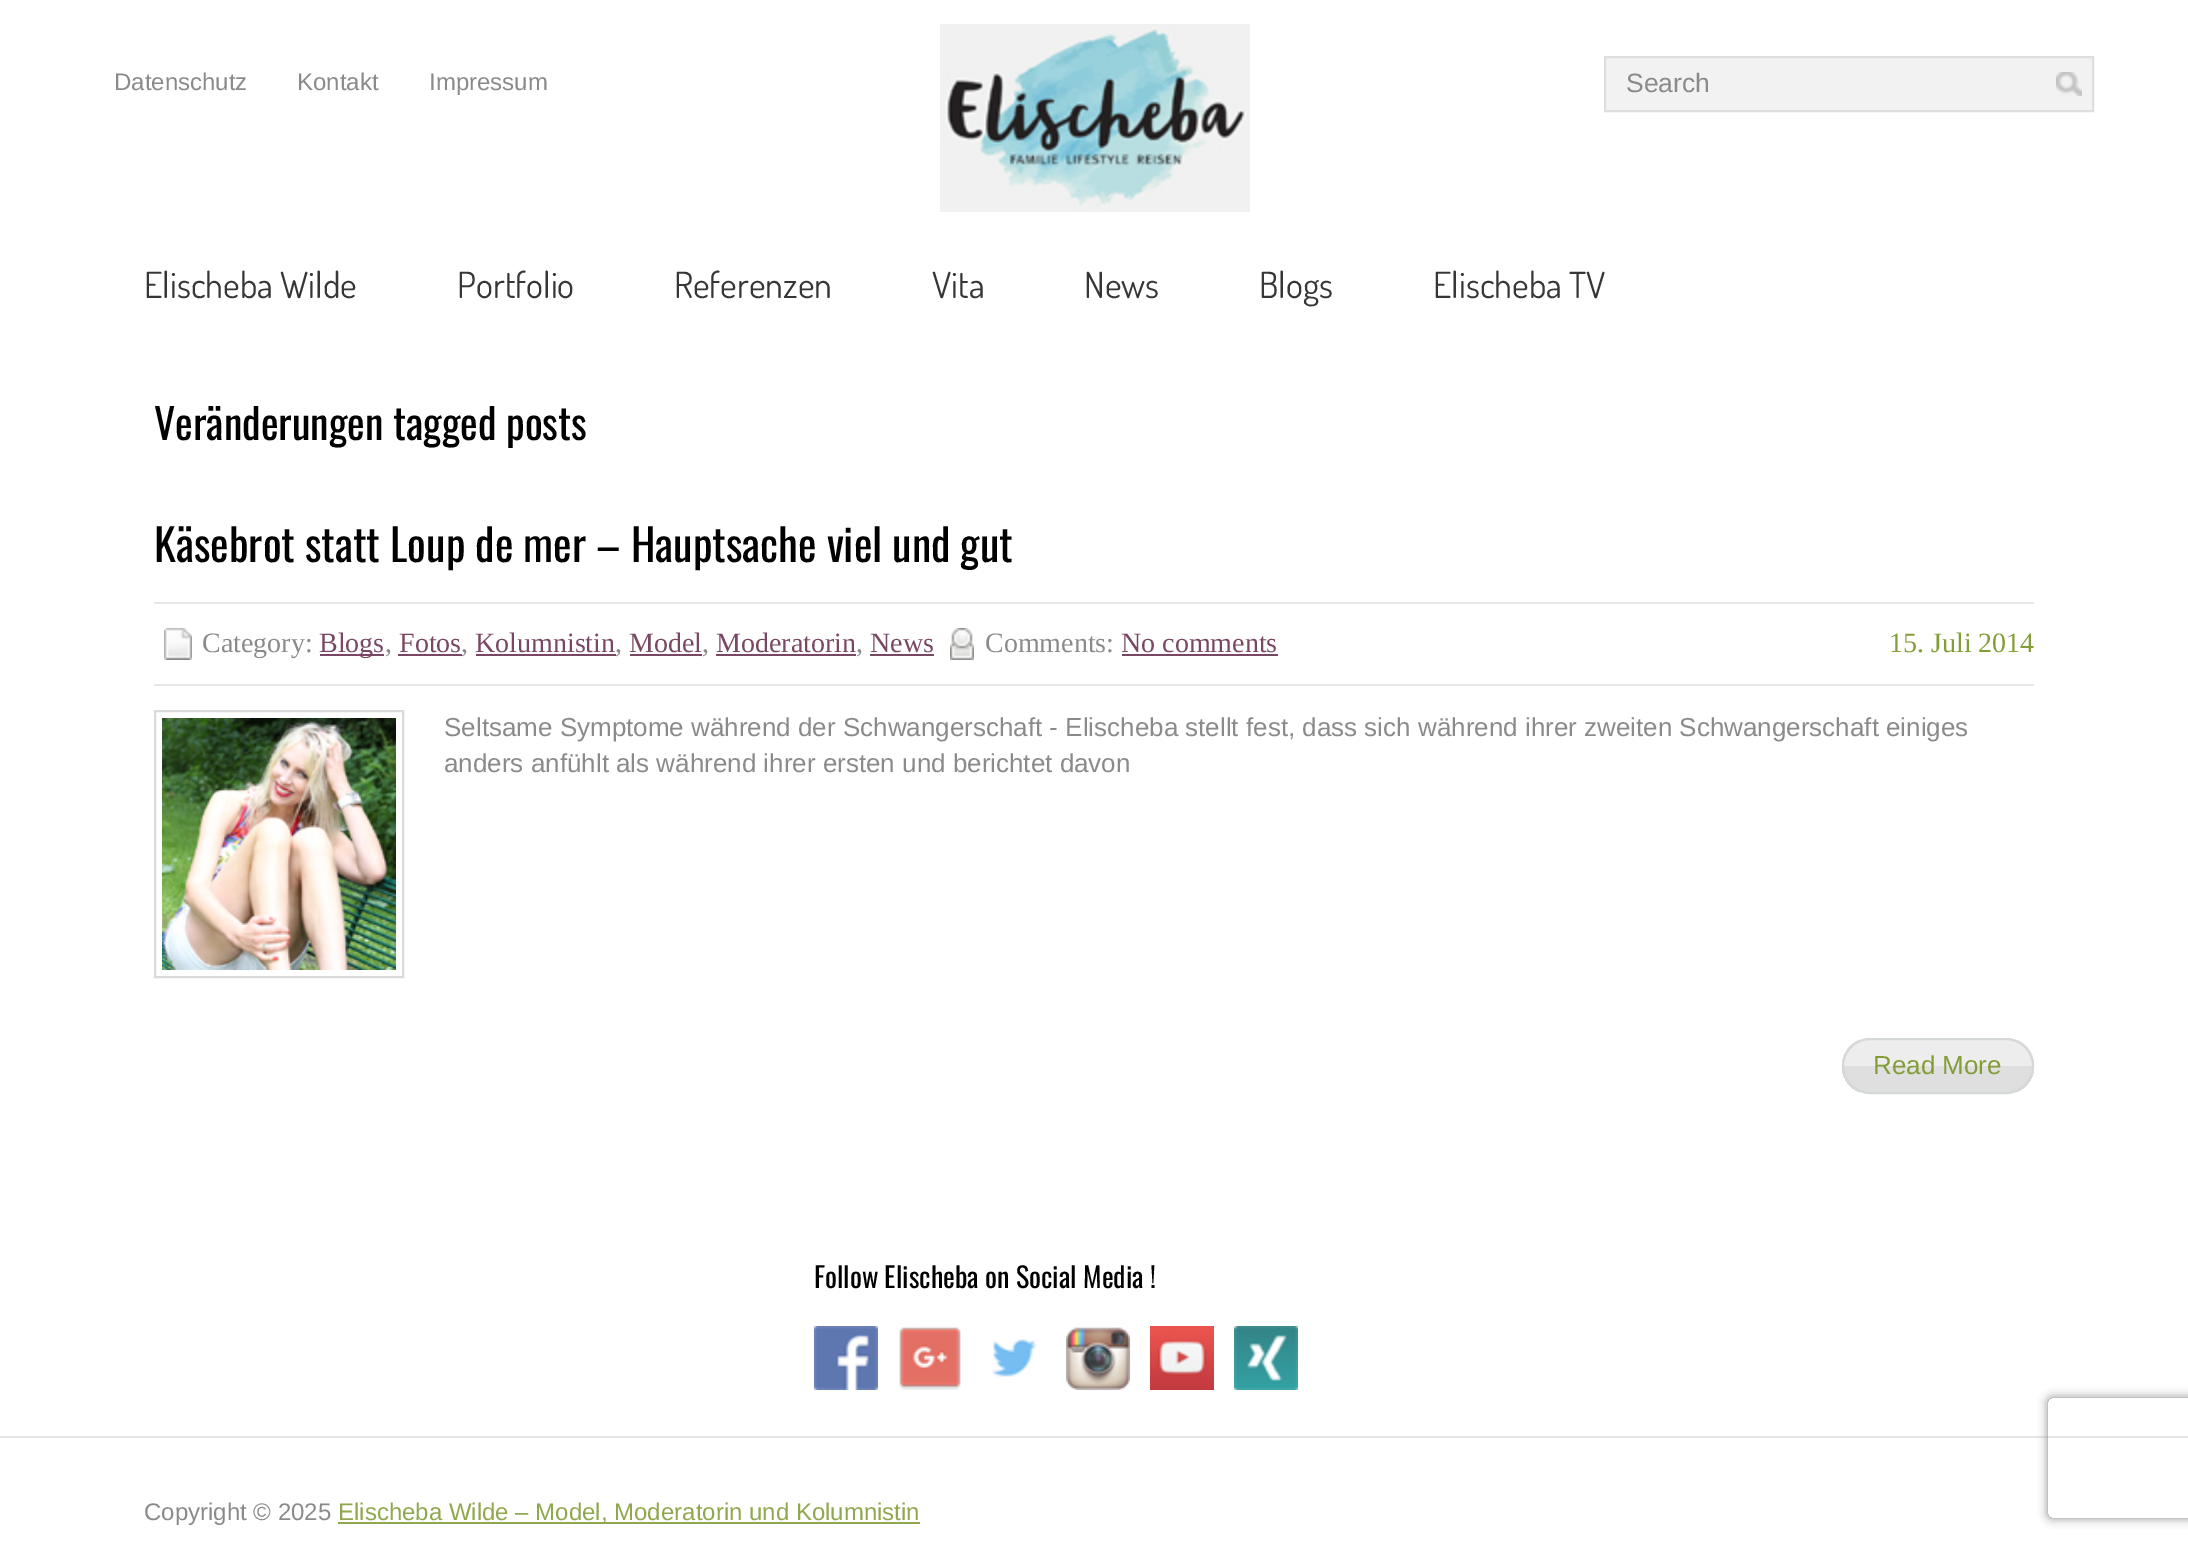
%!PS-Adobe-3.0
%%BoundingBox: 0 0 2188 1546
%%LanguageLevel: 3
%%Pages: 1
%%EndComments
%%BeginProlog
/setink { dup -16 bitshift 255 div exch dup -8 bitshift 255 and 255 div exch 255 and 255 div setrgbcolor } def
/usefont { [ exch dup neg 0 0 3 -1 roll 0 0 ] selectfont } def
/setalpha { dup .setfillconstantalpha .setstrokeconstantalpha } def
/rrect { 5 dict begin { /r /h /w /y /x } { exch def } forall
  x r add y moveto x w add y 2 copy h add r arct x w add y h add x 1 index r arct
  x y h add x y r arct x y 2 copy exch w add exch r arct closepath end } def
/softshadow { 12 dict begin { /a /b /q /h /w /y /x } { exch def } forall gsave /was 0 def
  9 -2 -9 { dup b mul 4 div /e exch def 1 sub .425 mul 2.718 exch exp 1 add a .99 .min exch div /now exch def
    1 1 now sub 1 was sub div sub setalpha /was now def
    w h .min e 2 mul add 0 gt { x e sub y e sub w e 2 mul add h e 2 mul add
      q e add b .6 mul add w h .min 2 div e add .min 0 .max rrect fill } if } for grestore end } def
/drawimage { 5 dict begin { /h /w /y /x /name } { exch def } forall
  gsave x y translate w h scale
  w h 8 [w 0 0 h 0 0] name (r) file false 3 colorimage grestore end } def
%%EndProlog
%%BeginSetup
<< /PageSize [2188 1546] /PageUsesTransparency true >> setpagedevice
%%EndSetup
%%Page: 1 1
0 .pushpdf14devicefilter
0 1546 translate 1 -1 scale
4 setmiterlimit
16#FFFFFF setink
0 0 2188 1546 rectfill
/LiberationSans-Regular 24 usefont
16#8A8A8A setink
[
    [(Datenschutz) 114 90]
    [(Kontakt) 297 90]
    [(Impressum) 429 90]
] { aload pop moveto show } forall
(img1.raw) 940 24 310 188 drawimage
16#F2F2F2 setink
1605 57 moveto 2093 57 lineto 2093 111 lineto 1605 111 lineto closepath gsave fill grestore
16#DEDEDE setink
2 setlinewidth
stroke
/LiberationSans-Regular 26.5 usefont
16#8A8A8A setink
1626 92 moveto (Search) show
(img2.raw) 2056 72 26 24 drawimage
/Dosis-Regular 36 usefont
16#363636 setink
[
    [(Elischeba Wilde) 144 298]
    [(Portfolio) 457 298]
    [(Referenzen) 674 298]
    [(Vita) 932 298]
    [(News) 1084 298]
    [(Blogs) 1259 298]
    [(Elischeba TV) 1433 298]
] { aload pop moveto show } forall
/Oswald-Regular 42 usefont
16#000000 setink
154 440 moveto (Veränderungen tagged posts) show
/Oswald-Regular 44 usefont
154 562 moveto (Käsebrot statt Loup de mer – Hauptsache viel und gut) show
16#E7E7E7 setink
154 602 1880 2 rectfill
154 684 1880 2 rectfill
(img3.raw) 164 628 28 32 drawimage
/LiberationSerif-Regular 28 usefont
16#8A8A8A setink
202 652 moveto (Category:) show
16#794764 setink
320 654 64 2 rectfill
319 652 moveto (Blogs) show
16#8A8A8A setink
385 652 moveto (,) show
16#794764 setink
399 652 moveto (Fotos) show
398 654 64 2 rectfill
16#8A8A8A setink
461 652 moveto (,) show
16#794764 setink
475 652 moveto (Kolumnistin) show
476 654 140 2 rectfill
16#8A8A8A setink
615 652 moveto (,) show
16#794764 setink
629 652 moveto (Model) show
630 654 72 2 rectfill
16#8A8A8A setink
702 652 moveto (,) show
16#794764 setink
716 652 moveto (Moderatorin) show
716 654 140 2 rectfill
16#8A8A8A setink
856 652 moveto (,) show
16#794764 setink
870 652 moveto (News) show
870 654 64 2 rectfill
(img4.raw) 950 628 24 32 drawimage
16#8A8A8A setink
985 652 moveto (Comments:) show
16#794764 setink
1121 652 moveto (No comments) show
1122 654 156 2 rectfill
16#839D36 setink
1889 652 moveto (15. Juli 2014) show
16#DADADA setink
155 711 248 266 rectstroke
(img5.raw) 162 718 234 252 drawimage
/LiberationSans-Regular 26 usefont
16#8A8A8A setink
444 736 moveto (Seltsame Symptome während der Schwangerschaft - Elischeba stellt fest, dass sich während ihrer zweiten Schwangerschaft einiges) show
444 772 moveto (anders anfühlt als während ihrer ersten und berichtet davon) show
gsave
1842 1038 192 56 28 rrect clip newpath
16#DFDFDF setink
1842 1066 192 26 rectfill
16#EDEDED setink
1842 1040 192 26 rectfill
grestore
16#D5D8D8 setink
1843 1039 190 54 27 rrect stroke
16#839D36 setink
1873 1074 moveto (Read More) show
/Oswald-Regular 28 usefont
16#000000 setink
814 1288 moveto (Follow Elischeba on Social Media !) show
(img6.raw) 814 1326 64 64 drawimage
(img7.raw) 899 1327 62 63 drawimage
(img8.raw) 992 1339 45 38 drawimage
(img9.raw) 1066 1327 64 63 drawimage
(img10.raw) 1150 1326 64 64 drawimage
(img11.raw) 1234 1326 64 64 drawimage
16#E5E5E5 setink
0 1436 2188 2 rectfill
/LiberationSans-Regular 24 usefont
16#8A8A8A setink
144 1520 moveto (Copyright © 2025) show
16#90A74D setink
338 1522 582 2 rectfill
338 1520 moveto (Elischeba Wilde – Model, Moderatorin und Kolumnistin) show
gsave
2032 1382 moveto 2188 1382 lineto 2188 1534 lineto 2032 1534 lineto closepath 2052 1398 moveto 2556 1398 lineto 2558 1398 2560 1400 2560 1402 curveto 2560 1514 lineto 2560 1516 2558 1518 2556 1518 curveto 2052 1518 lineto 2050 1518 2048 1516 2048 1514 curveto 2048 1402 lineto 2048 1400 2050 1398 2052 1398 curveto closepath eoclip newpath
16#808080 setink
2048 1398 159 120 4 5 1 softshadow
grestore
.poppdf14devicefilter showpage
%%EOF
